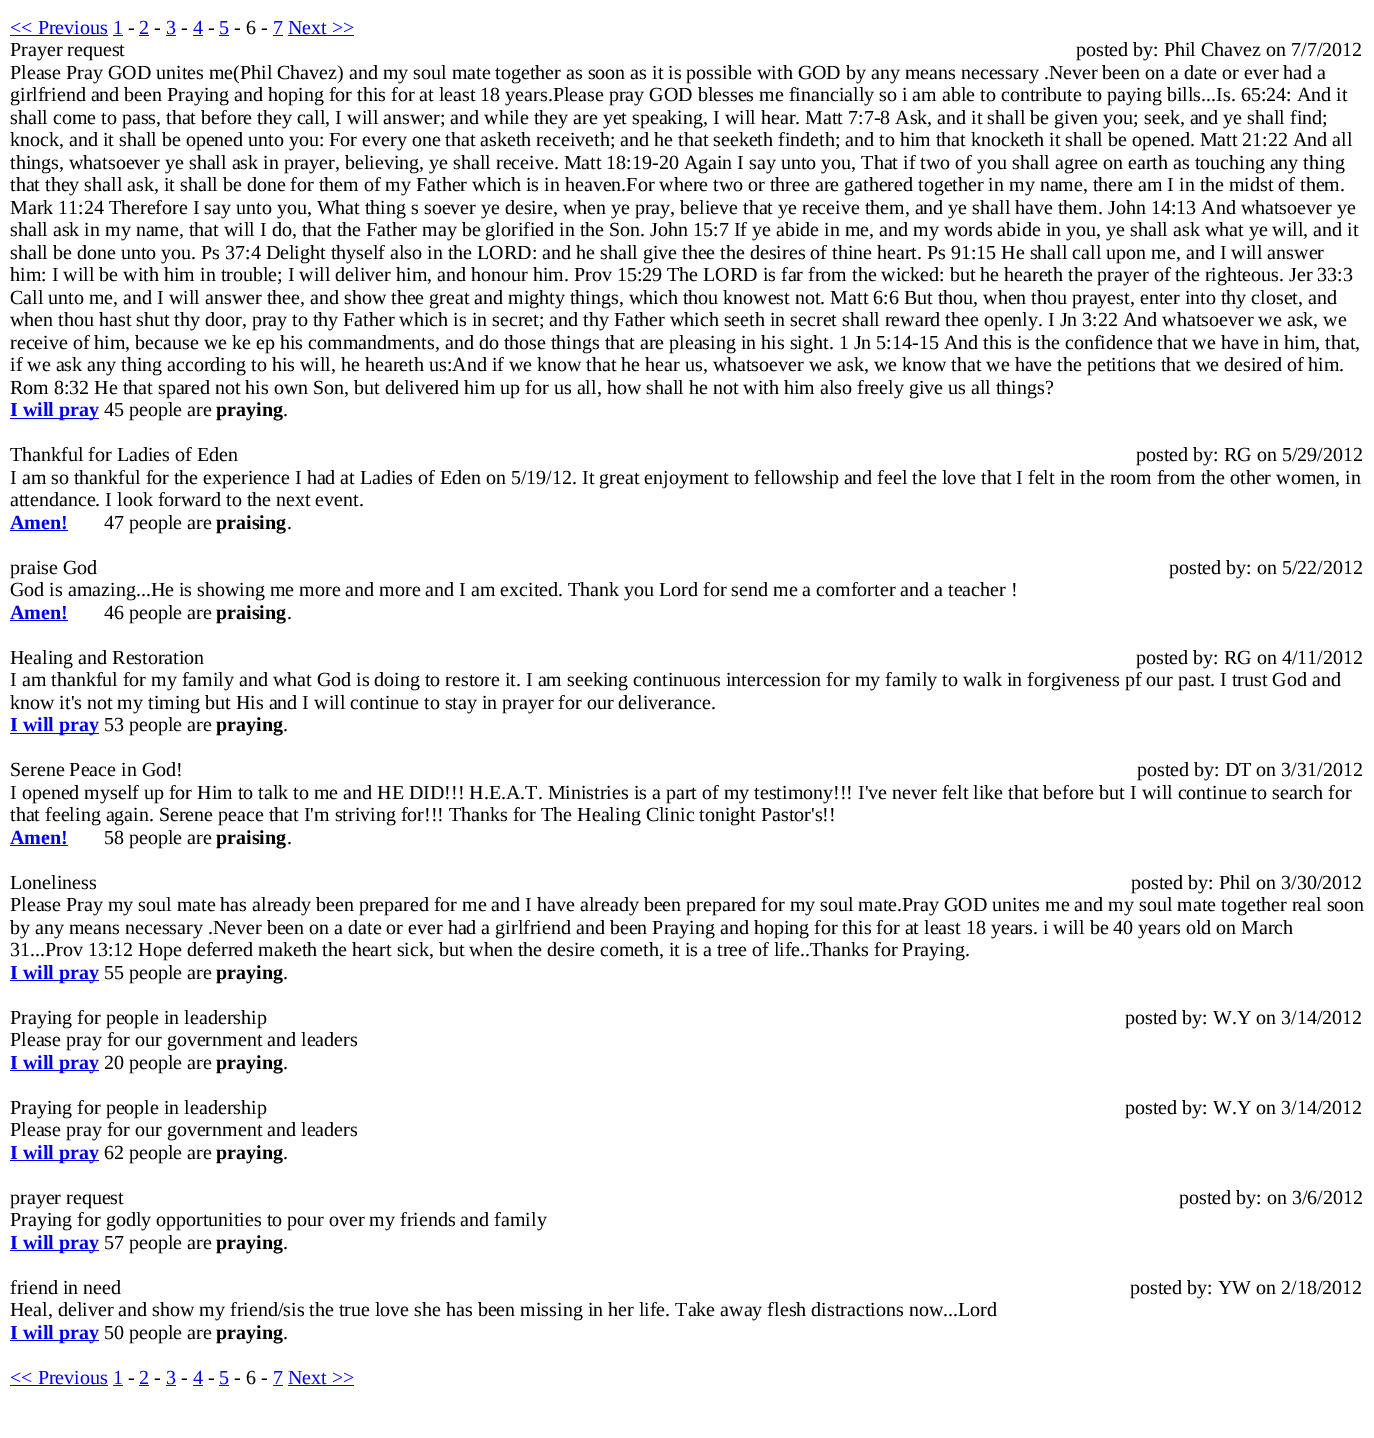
%!PS-Adobe-3.0
%%BoundingBox: 0 0 1374 1438
%%LanguageLevel: 3
%%Pages: 1
%%EndComments
%%BeginProlog
/setink { dup -16 bitshift 255 div exch dup -8 bitshift 255 and 255 div exch 255 and 255 div setrgbcolor } def
/usefont { [ exch dup neg 0 0 3 -1 roll 0 0 ] selectfont } def
%%EndProlog
%%BeginSetup
<< /PageSize [1374 1438] >> setpagedevice
%%EndSetup
%%Page: 1 1
0 1438 translate 1 -1 scale
4 setmiterlimit
16#FFFFFF setink
0 0 1374 1438 rectfill
/LiberationSerif-Regular 20 usefont
16#0000EE setink
10 34 moveto (<< Previous 1) show
10 35 98 1 rectfill
16#000000 setink
128 34 moveto (-) show
16#0000EE setink
139 34 moveto (2) show
139 35 10 1 rectfill
16#000000 setink
154 34 moveto (-) show
16#0000EE setink
166 34 moveto (3) show
166 35 10 1 rectfill
16#000000 setink
181 34 moveto (-) show
16#0000EE setink
193 34 moveto (4) show
193 35 10 1 rectfill
16#000000 setink
208 34 moveto (-) show
16#0000EE setink
219 34 moveto (5) show
219 35 10 1 rectfill
16#000000 setink
234 34 moveto (- 6 -) show
16#0000EE setink
273 34 moveto (7 Next >>) show
[
    [273 35 10 1 16#0000EE]
    [113 35 10 1 16#0000EE]
    [288 35 66 1 16#0000EE]
] { aload pop setink rectfill } forall
16#000000 setink
[
    [(Prayer request) 10 56]
    [(posted by: Phil Chavez on 7/7/2012) 1076 56]
    [(Please Pray GOD unites me\(Phil Chavez\) and my soul mate together as soon as it is possible with GOD by any means necessary .Never been on a date or ever had a) 10 79]
    [(girlfriend and been Praying and hoping for this for at least 18 years.Please pray GOD blesses me financially so i am able to contribute to paying bills...Is. 65:24: And it) 10 101]
    [(shall come to pass, that before they call, I will answer; and while they are yet speaking, I will hear. Matt 7:7-8 Ask, and it shall be given you; seek, and ye shall find;) 10 124]
    [(knock, and it shall be opened unto you: For every one that asketh receiveth; and he that seeketh findeth; and to him that knocketh it shall be opened. Matt 21:22 And all) 10 146]
    [(things, whatsoever ye shall ask in prayer, believing, ye shall receive. Matt 18:19-20 Again I say unto you, That if two of you shall agree on earth as touching any thing) 10 169]
    [(that they shall ask, it shall be done for them of my Father which is in heaven.For where two or three are gathered together in my name, there am I in the midst of them.) 10 191]
    [(Mark 11:24 Therefore I say unto you, What thing s soever ye desire, when ye pray, believe that ye receive them, and ye shall have them. John 14:13 And whatsoever ye) 10 214]
    [(shall ask in my name, that will I do, that the Father may be glorified in the Son. John 15:7 If ye abide in me, and my words abide in you, ye shall ask what ye will, and it) 10 236]
    [(shall be done unto you. Ps 37:4 Delight thyself also in the LORD: and he shall give thee the desires of thine heart. Ps 91:15 He shall call upon me, and I will answer) 10 259]
    [(him: I will be with him in trouble; I will deliver him, and honour him. Prov 15:29 The LORD is far from the wicked: but he heareth the prayer of the righteous. Jer 33:3) 10 281]
    [(Call unto me, and I will answer thee, and show thee great and mighty things, which thou knowest not. Matt 6:6 But thou, when thou prayest, enter into thy closet, and) 10 304]
    [(when thou hast shut thy door, pray to thy Father which is in secret; and thy Father which seeth in secret shall reward thee openly. I Jn 3:22 And whatsoever we ask, we) 10 326]
    [(receive of him, because we ke ep his commandments, and do those things that are pleasing in his sight. 1 Jn 5:14-15 And this is the confidence that we have in him, that,) 10 349]
    [(if we ask any thing according to his will, he heareth us:And if we know that he hear us, whatsoever we ask, we know that we have the petitions that we desired of him.) 10 371]
    [(Rom 8:32 He that spared not his own Son, but delivered him up for us all, how shall he not with him also freely give us all things?) 10 394]
] { aload pop moveto show } forall
16#0000EE setink
10 418 89 1 rectfill
/LiberationSerif-Bold 20 usefont
10 416 moveto (I will pray) show
/LiberationSerif-Regular 20 usefont
16#000000 setink
104 416 moveto (45 people are) show
/LiberationSerif-Bold 20 usefont
216 416 moveto (praying) show
/LiberationSerif-Regular 20 usefont
[
    [(.) 283 416]
    [(Thankful for Ladies of Eden) 10 461]
    [(posted by: RG on 5/29/2012) 1136 461]
    [(I am so thankful for the experience I had at Ladies of Eden on 5/19/12. It great enjoyment to fellowship and feel the love that I felt in the room from the other women, in) 10 484]
    [(attendance. I look forward to the next event.) 10 506]
] { aload pop moveto show } forall
/LiberationSerif-Bold 20 usefont
16#0000EE setink
10 529 moveto (Amen!) show
10 530 58 1 rectfill
/LiberationSerif-Regular 20 usefont
16#000000 setink
104 529 moveto (47 people are) show
/LiberationSerif-Bold 20 usefont
216 529 moveto (praising) show
/LiberationSerif-Regular 20 usefont
[
    [(.) 287 529]
    [(praise God) 10 574]
    [(posted by: on 5/22/2012) 1169 574]
    [(God is amazing...He is showing me more and more and I am excited. Thank you Lord for send me a comforter and a teacher !) 10 596]
] { aload pop moveto show } forall
/LiberationSerif-Bold 20 usefont
16#0000EE setink
10 619 moveto (Amen!) show
10 620 58 1 rectfill
/LiberationSerif-Regular 20 usefont
16#000000 setink
104 619 moveto (46 people are) show
/LiberationSerif-Bold 20 usefont
216 619 moveto (praising) show
/LiberationSerif-Regular 20 usefont
[
    [(.) 287 619]
    [(Healing and Restoration) 10 664]
    [(posted by: RG on 4/11/2012) 1136 664]
    [(I am thankful for my family and what God is doing to restore it. I am seeking continuous intercession for my family to walk in forgiveness pf our past. I trust God and) 10 686]
    [(know it's not my timing but His and I will continue to stay in prayer for our deliverance.) 10 709]
] { aload pop moveto show } forall
16#0000EE setink
10 733 89 1 rectfill
/LiberationSerif-Bold 20 usefont
10 731 moveto (I will pray) show
/LiberationSerif-Regular 20 usefont
16#000000 setink
104 731 moveto (53 people are) show
/LiberationSerif-Bold 20 usefont
216 731 moveto (praying) show
/LiberationSerif-Regular 20 usefont
[
    [(.) 283 731]
    [(Serene Peace in God!) 10 776]
    [(posted by: DT on 3/31/2012) 1137 776]
    [(I opened myself up for Him to talk to me and HE DID!!! H.E.A.T. Ministries is a part of my testimony!!! I've never felt like that before but I will continue to search for) 10 799]
    [(that feeling again. Serene peace that I'm striving for!!! Thanks for The Healing Clinic tonight Pastor's!!) 10 821]
] { aload pop moveto show } forall
/LiberationSerif-Bold 20 usefont
16#0000EE setink
10 844 moveto (Amen!) show
10 845 58 1 rectfill
/LiberationSerif-Regular 20 usefont
16#000000 setink
104 844 moveto (58 people are) show
/LiberationSerif-Bold 20 usefont
216 844 moveto (praising) show
/LiberationSerif-Regular 20 usefont
[
    [(.) 287 844]
    [(Loneliness) 10 889]
    [(posted by: Phil on 3/30/2012) 1131 889]
    [(Please Pray my soul mate has already been prepared for me and I have already been prepared for my soul mate.Pray GOD unites me and my soul mate together real soon) 10 911]
    [(by any means necessary .Never been on a date or ever had a girlfriend and been Praying and hoping for this for at least 18 years. i will be 40 years old on March) 10 934]
    [(31...Prov 13:12 Hope deferred maketh the heart sick, but when the desire cometh, it is a tree of life..Thanks for Praying.) 10 956]
] { aload pop moveto show } forall
16#0000EE setink
10 980 89 1 rectfill
/LiberationSerif-Bold 20 usefont
10 979 moveto (I will pray) show
/LiberationSerif-Regular 20 usefont
16#000000 setink
104 979 moveto (55 people are) show
/LiberationSerif-Bold 20 usefont
216 979 moveto (praying) show
/LiberationSerif-Regular 20 usefont
[
    [(.) 283 979]
    [(Praying for people in leadership) 10 1024]
    [(posted by: W.Y on 3/14/2012) 1125 1024]
    [(Please pray for our government and leaders) 10 1046]
] { aload pop moveto show } forall
16#0000EE setink
10 1070 89 1 rectfill
/LiberationSerif-Bold 20 usefont
10 1069 moveto (I will pray) show
/LiberationSerif-Regular 20 usefont
16#000000 setink
104 1069 moveto (20 people are) show
/LiberationSerif-Bold 20 usefont
216 1069 moveto (praying) show
/LiberationSerif-Regular 20 usefont
[
    [(.) 283 1069]
    [(Praying for people in leadership) 10 1114]
    [(posted by: W.Y on 3/14/2012) 1125 1114]
    [(Please pray for our government and leaders) 10 1136]
] { aload pop moveto show } forall
16#0000EE setink
10 1160 89 1 rectfill
/LiberationSerif-Bold 20 usefont
10 1159 moveto (I will pray) show
/LiberationSerif-Regular 20 usefont
16#000000 setink
104 1159 moveto (62 people are) show
/LiberationSerif-Bold 20 usefont
216 1159 moveto (praying) show
/LiberationSerif-Regular 20 usefont
[
    [(.) 283 1159]
    [(prayer request) 10 1204]
    [(posted by: on 3/6/2012) 1179 1204]
    [(Praying for godly opportunities to pour over my friends and family) 10 1226]
] { aload pop moveto show } forall
16#0000EE setink
10 1250 89 1 rectfill
/LiberationSerif-Bold 20 usefont
10 1249 moveto (I will pray) show
/LiberationSerif-Regular 20 usefont
16#000000 setink
104 1249 moveto (57 people are) show
/LiberationSerif-Bold 20 usefont
216 1249 moveto (praying) show
/LiberationSerif-Regular 20 usefont
[
    [(.) 283 1249]
    [(friend in need) 10 1294]
    [(posted by: YW on 2/18/2012) 1130 1294]
    [(Heal, deliver and show my friend/sis the true love she has been missing in her life. Take away flesh distractions now...Lord) 10 1316]
] { aload pop moveto show } forall
16#0000EE setink
10 1340 89 1 rectfill
/LiberationSerif-Bold 20 usefont
10 1339 moveto (I will pray) show
/LiberationSerif-Regular 20 usefont
16#000000 setink
104 1339 moveto (50 people are) show
/LiberationSerif-Bold 20 usefont
216 1339 moveto (praying) show
/LiberationSerif-Regular 20 usefont
283 1339 moveto (.) show
16#0000EE setink
10 1384 moveto (<< Previous 1) show
10 1385 98 1 rectfill
16#000000 setink
128 1384 moveto (-) show
16#0000EE setink
139 1384 moveto (2) show
139 1385 10 1 rectfill
16#000000 setink
154 1384 moveto (-) show
16#0000EE setink
166 1384 moveto (3) show
166 1385 10 1 rectfill
16#000000 setink
181 1384 moveto (-) show
16#0000EE setink
193 1384 moveto (4) show
193 1385 10 1 rectfill
16#000000 setink
208 1384 moveto (-) show
16#0000EE setink
219 1384 moveto (5) show
219 1385 10 1 rectfill
16#000000 setink
234 1384 moveto (- 6 -) show
16#0000EE setink
273 1384 moveto (7 Next >>) show
[
    [273 1385 10 1 16#0000EE]
    [113 1385 10 1 16#0000EE]
    [288 1385 66 1 16#0000EE]
] { aload pop setink rectfill } forall
showpage
%%EOF
